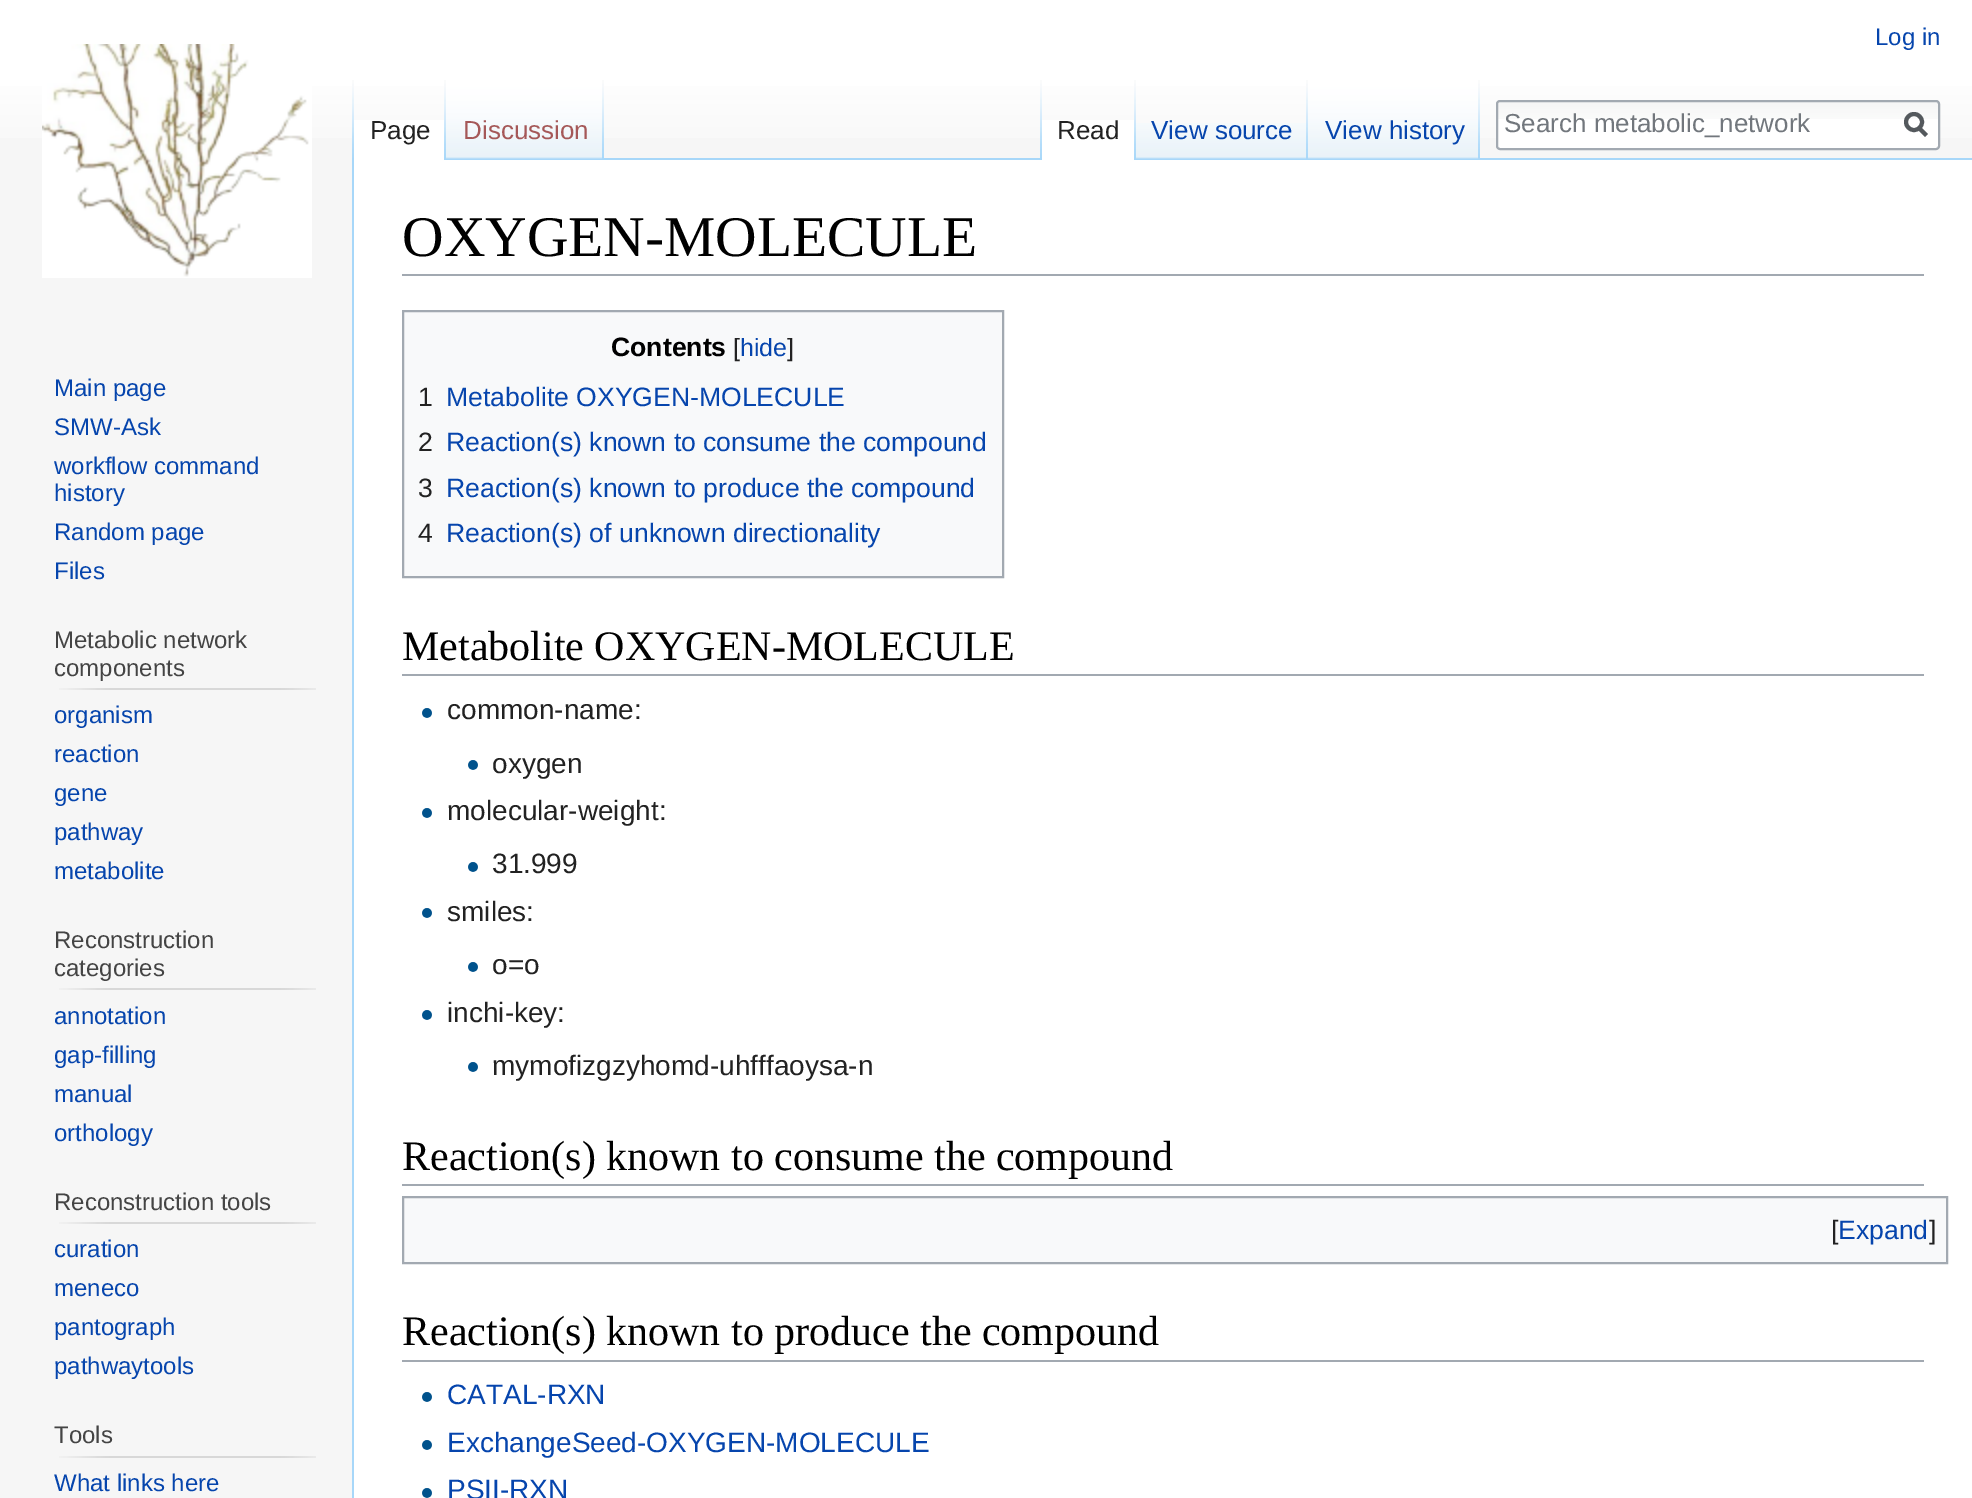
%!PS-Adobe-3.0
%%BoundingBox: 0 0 1972 1498
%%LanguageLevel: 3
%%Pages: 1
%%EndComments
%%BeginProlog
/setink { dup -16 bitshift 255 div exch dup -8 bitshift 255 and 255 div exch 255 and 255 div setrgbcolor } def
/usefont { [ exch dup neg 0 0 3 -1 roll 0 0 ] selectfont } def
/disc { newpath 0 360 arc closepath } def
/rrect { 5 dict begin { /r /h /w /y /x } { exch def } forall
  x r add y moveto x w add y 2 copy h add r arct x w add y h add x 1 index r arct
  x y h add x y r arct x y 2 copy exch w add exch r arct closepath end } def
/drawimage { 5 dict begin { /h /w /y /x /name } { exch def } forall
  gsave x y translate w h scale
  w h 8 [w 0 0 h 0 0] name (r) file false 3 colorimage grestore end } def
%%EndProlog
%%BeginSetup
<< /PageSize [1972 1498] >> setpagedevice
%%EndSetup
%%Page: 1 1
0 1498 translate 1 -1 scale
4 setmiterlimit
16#F6F6F6 setink
0 0 1972 1498 rectfill
gsave 0 0 moveto 1972 0 lineto 1972 138 lineto 0 138 lineto closepath clip newpath
<< /ShadingType 2 /ColorSpace /DeviceRGB /Coords [986 0 986 160] /Extend [true true] /Function << /FunctionType 3 /Domain [0 1] /Functions [<< /FunctionType 2 /Domain [0 1] /C0 [1 1 1] /C1 [1 1 1] /N 1 >> << /FunctionType 2 /Domain [0 1] /C0 [1 1 1] /C1 [0.965 0.965 0.965] /N 1 >>] /Bounds [0.5] /Encode [0 1 0 1] >> >> shfill grestore
/LiberationSans-Regular 24 usefont
16#0645AD setink
1875 45 moveto (Log in) show
(img1.raw) 352 80 2 78 drawimage
16#FFFFFF setink
354 120 90 40 rectfill
(img2.raw) 444 80 2 80 drawimage
/LiberationSans-Regular 26 usefont
16#222222 setink
370 139 moveto (Page) show
16#A7D7F9 setink
446 158 1526 2 rectfill
(img3.raw) 446 80 156 79 drawimage
(img4.raw) 602 80 2 79 drawimage
16#A55858 setink
463 139 moveto (Discussion) show
(img1.raw) 1040 80 2 78 drawimage
16#FFFFFF setink
1042 120 92 40 rectfill
(img2.raw) 1134 80 2 80 drawimage
16#222222 setink
1057 139 moveto (Read) show
(img5.raw) 1136 123 170 36 drawimage
(img4.raw) 1306 80 2 79 drawimage
16#0645AD setink
1151 139 moveto (View source) show
(img6.raw) 1308 80 170 79 drawimage
(img4.raw) 1478 80 2 79 drawimage
1325 139 moveto (View history) show
16#FFFFFF setink
1496 100 444 50 4 rrect fill
(img7.raw) 1496 102 444 17 drawimage
16#A2A9B1 setink
2 setlinewidth
1497 101 442 48 3 rrect stroke
16#72777D setink
1504 132 moveto (Search metabolic_network) show
16#54595D setink
4 setlinewidth
1926.5 135.5 moveto 1918.5 127.5 lineto stroke
1914 122 8 disc stroke
(img8.raw) 42 44 270 234 drawimage
/LiberationSans-Regular 24 usefont
16#0645AD setink
[
    [(Main page) 54 396]
    [(SMW-Ask) 54 435]
    [(workflow command) 54 474]
    [(history) 54 501]
    [(Random page) 54 540]
    [(Files) 54 579]
] { aload pop moveto show } forall
16#444444 setink
54 648 moveto (Metabolic network) show
54 676 moveto (components) show
(img9.raw) 59 688 257 2 drawimage
16#0645AD setink
[
    [(organism) 54 723]
    [(reaction) 54 762]
    [(gene) 54 801]
    [(pathway) 54 840]
    [(metabolite) 54 879]
] { aload pop moveto show } forall
16#444444 setink
54 948 moveto (Reconstruction) show
54 976 moveto (categories) show
(img9.raw) 59 988 257 2 drawimage
16#0645AD setink
[
    [(annotation) 54 1024]
    [(gap-filling) 54 1063]
    [(manual) 54 1102]
    [(orthology) 54 1141]
] { aload pop moveto show } forall
16#444444 setink
54 1210 moveto (Reconstruction tools) show
(img9.raw) 59 1222 257 2 drawimage
16#0645AD setink
[
    [(curation) 54 1257]
    [(meneco) 54 1296]
    [(pantograph) 54 1335]
    [(pathwaytools) 54 1374]
] { aload pop moveto show } forall
16#444444 setink
54 1443 moveto (Tools) show
(img9.raw) 59 1456 257 2 drawimage
16#0645AD setink
54 1491 moveto (What links here) show
[
    [354 160 1618 1338 16#FFFFFF]
    [352 158 2 1340 16#A7D7F9]
    [402 274 1522 2 16#A2A9B1]
] { aload pop setink rectfill } forall
/LiberationSerif-Regular 57.5 usefont
16#000000 setink
402 256 moveto (OXYGEN-MOLECULE) show
16#F8F9FA setink
403 311 moveto 1003 311 lineto 1003 577 lineto 403 577 lineto closepath gsave fill grestore
16#A2A9B1 setink
2 setlinewidth
stroke
/LiberationSans-Bold 26.6 usefont
16#000000 setink
611 356 moveto (Contents) show
/LiberationSans-Regular 25 usefont
16#222222 setink
733 356 moveto ([) show
16#0645AD setink
740 356 moveto (hide) show
16#222222 setink
787 356 moveto (]) show
/LiberationSans-Regular 26.6 usefont
418 406 moveto (1) show
16#0645AD setink
446 406 moveto (Metabolite OXYGEN-MOLECULE) show
16#222222 setink
418 451 moveto (2) show
16#0645AD setink
446 451 moveto (Reaction\(s\) known to consume the compound) show
16#222222 setink
418 497 moveto (3) show
16#0645AD setink
446 497 moveto (Reaction\(s\) known to produce the compound) show
16#222222 setink
418 542 moveto (4) show
16#0645AD setink
446 542 moveto (Reaction\(s\) of unknown directionality) show
16#A2A9B1 setink
402 674 1522 2 rectfill
/LiberationSerif-Regular 42 usefont
16#000000 setink
402 660 moveto (Metabolite OXYGEN-MOLECULE) show
(img10.raw) 422 708 10 10 drawimage
/LiberationSans-Regular 28 usefont
16#222222 setink
447 719 moveto (common-name:) show
(img11.raw) 468 760 10 10 drawimage
492 773 moveto (oxygen) show
(img10.raw) 422 808 10 10 drawimage
447 820 moveto (molecular-weight:) show
(img10.raw) 468 862 10 10 drawimage
492 873 moveto (31.999) show
(img10.raw) 422 908 10 10 drawimage
447 921 moveto (smiles:) show
(img10.raw) 468 962 10 10 drawimage
492 974 moveto (o=o) show
(img12.raw) 422 1010 10 10 drawimage
447 1022 moveto (inchi-key:) show
(img10.raw) 468 1062 10 10 drawimage
492 1075 moveto (mymofizgzyhomd-uhfffaoysa-n) show
16#A2A9B1 setink
402 1184 1522 2 rectfill
/LiberationSerif-Regular 42 usefont
16#000000 setink
402 1170 moveto (Reaction\(s\) known to consume the compound) show
16#F8F9FA setink
403 1197 moveto 1947 1197 lineto 1947 1263 lineto 403 1263 lineto closepath gsave fill grestore
16#A2A9B1 setink
stroke
/LiberationSans-Regular 26.6 usefont
16#222222 setink
1831 1239 moveto ([) show
16#0645AD setink
1838 1239 moveto (Expand) show
16#222222 setink
1929 1239 moveto (]) show
16#A2A9B1 setink
402 1360 1522 2 rectfill
/LiberationSerif-Regular 42 usefont
16#000000 setink
402 1345 moveto (Reaction\(s\) known to produce the compound) show
(img10.raw) 422 1392 10 10 drawimage
/LiberationSans-Regular 28 usefont
16#0645AD setink
447 1404 moveto (CATAL-RXN) show
(img10.raw) 422 1440 10 10 drawimage
447 1452 moveto (ExchangeSeed-OXYGEN-MOLECULE) show
(img10.raw) 422 1488 10 10 drawimage
447 1499 moveto (PSII-RXN) show
showpage
%%EOF
